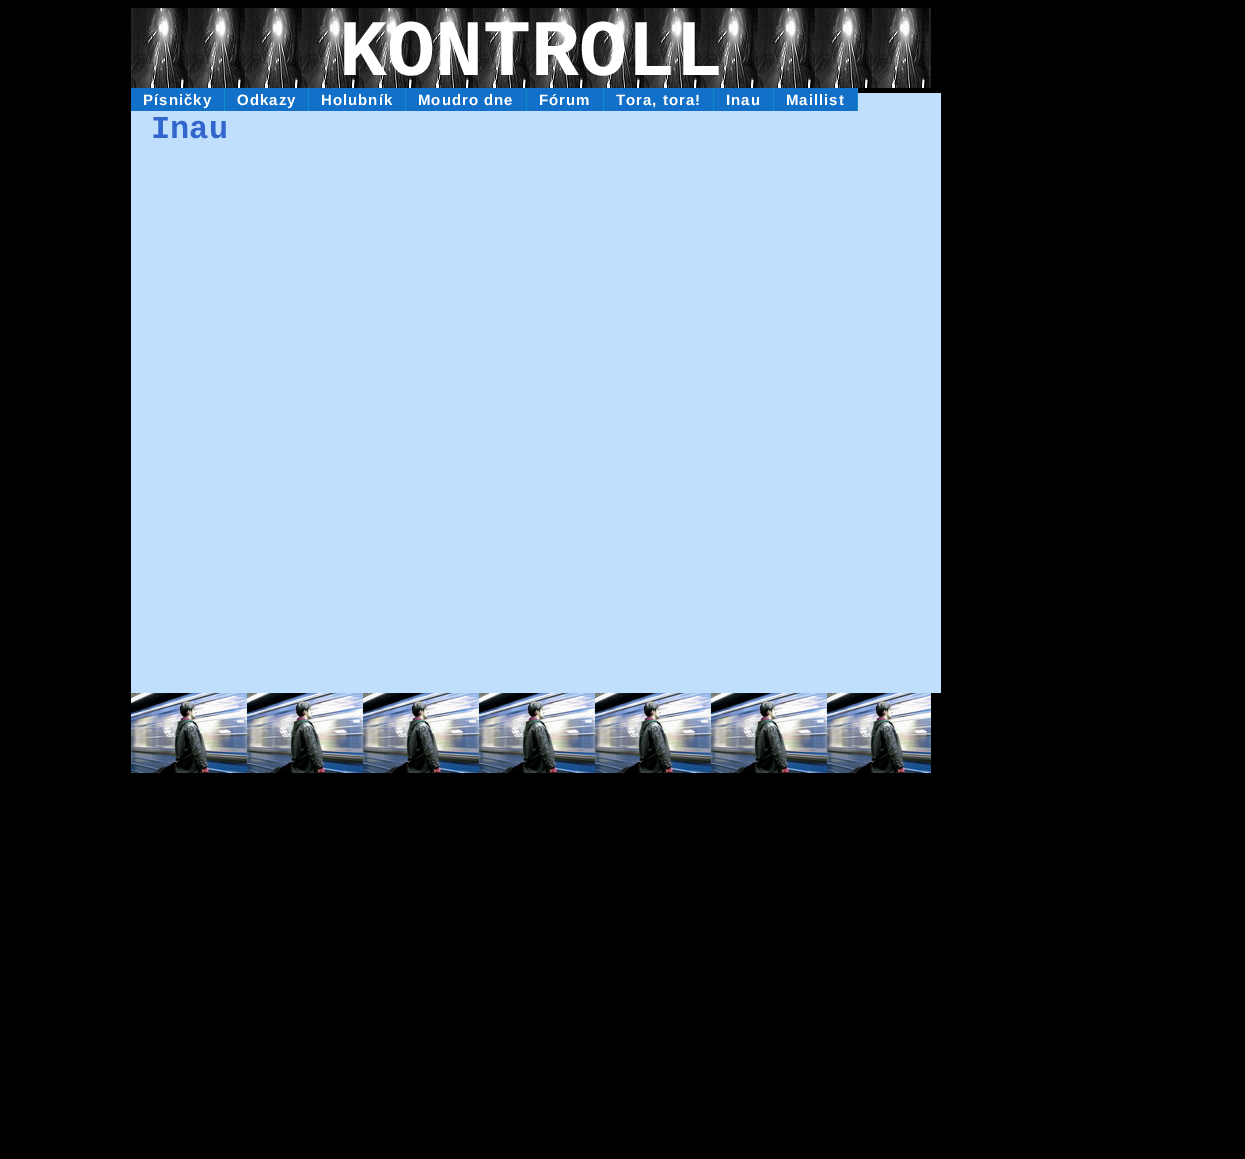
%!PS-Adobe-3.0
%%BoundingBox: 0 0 1245 1159
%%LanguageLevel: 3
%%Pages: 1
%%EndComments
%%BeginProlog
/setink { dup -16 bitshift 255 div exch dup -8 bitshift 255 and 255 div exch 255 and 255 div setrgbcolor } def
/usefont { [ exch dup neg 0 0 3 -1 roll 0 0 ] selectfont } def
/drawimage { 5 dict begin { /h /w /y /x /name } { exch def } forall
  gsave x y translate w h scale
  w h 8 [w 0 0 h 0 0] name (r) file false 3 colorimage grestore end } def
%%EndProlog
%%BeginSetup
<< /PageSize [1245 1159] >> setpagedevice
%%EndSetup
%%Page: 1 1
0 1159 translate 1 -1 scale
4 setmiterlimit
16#000000 setink
0 0 1245 1159 rectfill
(img1.raw) 131 8 800 80 drawimage
/LiberationMono-Bold 80 usefont
16#FFFFFF setink
339 75 moveto (KONTROLL) show
[
    [131 93 810 600 16#C0DFFD]
    [131 88 93 23 16#1270C8]
    [224 88 1 23 16#128AC8]
] { aload pop setink rectfill } forall
/LiberationSans-Bold 15 usefont
16#FFFFFF setink
143 105 moveto 1 0 (Písničky) ashow
16#1270C8 setink
225 88 83 23 rectfill
16#128AC8 setink
308 88 1 23 rectfill
16#FFFFFF setink
237 105 moveto 1 0 (Odkazy) ashow
16#1270C8 setink
309 88 96 23 rectfill
16#128AC8 setink
405 88 1 23 rectfill
16#FFFFFF setink
321 105 moveto 1 0 (Holubník) ashow
16#1270C8 setink
406 88 120 23 rectfill
16#128AC8 setink
526 88 1 23 rectfill
16#FFFFFF setink
418 105 moveto 1 0 (Moudro dne) ashow
16#1270C8 setink
527 88 76 23 rectfill
16#128AC8 setink
603 88 1 23 rectfill
16#FFFFFF setink
539 105 moveto 1 0 (Fórum) ashow
16#1270C8 setink
604 88 109 23 rectfill
16#128AC8 setink
713 88 1 23 rectfill
16#FFFFFF setink
616 105 moveto 1 0 (Tora, tora!) ashow
16#1270C8 setink
714 88 59 23 rectfill
16#128AC8 setink
773 88 1 23 rectfill
16#FFFFFF setink
726 105 moveto 1 0 (Inau) ashow
16#1270C8 setink
774 88 83 23 rectfill
16#128AC8 setink
857 88 1 23 rectfill
16#FFFFFF setink
786 105 moveto 1 0 (Maillist) ashow
/LiberationMono-Bold 32 usefont
16#3366CC setink
151 138 moveto (Inau) show
(img2.raw) 131 693 800 80 drawimage
showpage
%%EOF
